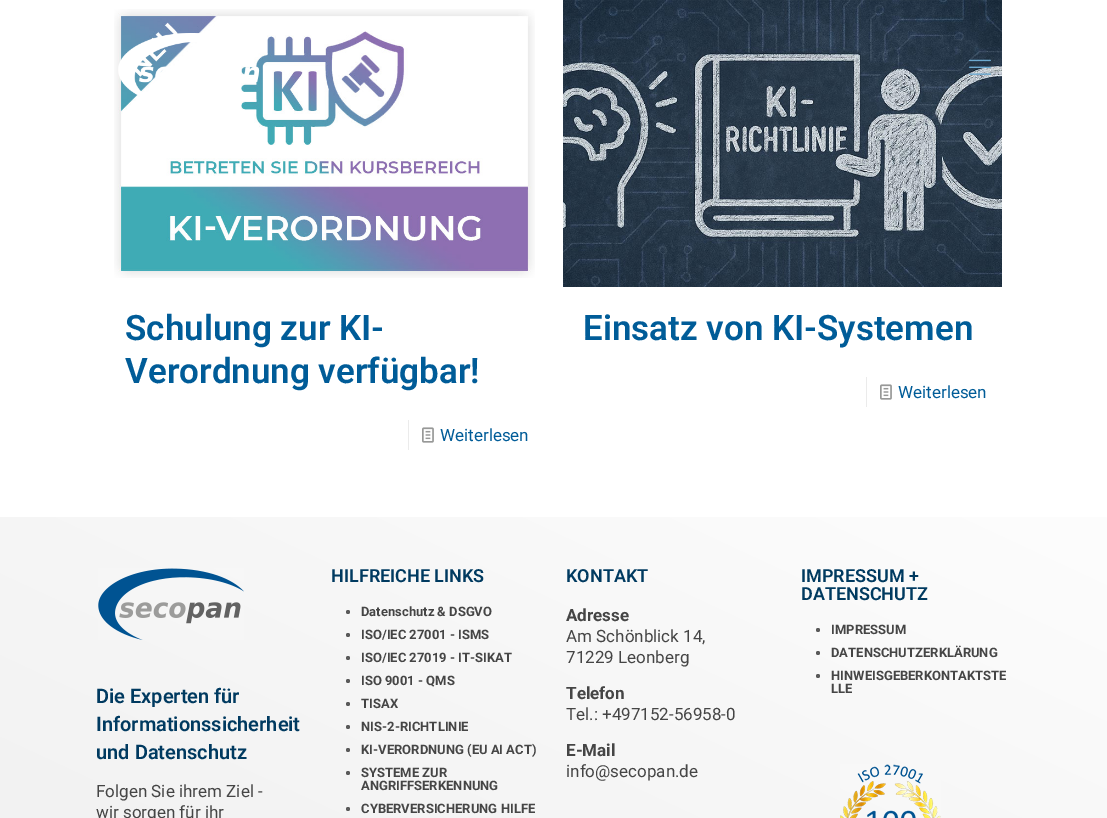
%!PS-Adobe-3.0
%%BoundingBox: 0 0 1107 818
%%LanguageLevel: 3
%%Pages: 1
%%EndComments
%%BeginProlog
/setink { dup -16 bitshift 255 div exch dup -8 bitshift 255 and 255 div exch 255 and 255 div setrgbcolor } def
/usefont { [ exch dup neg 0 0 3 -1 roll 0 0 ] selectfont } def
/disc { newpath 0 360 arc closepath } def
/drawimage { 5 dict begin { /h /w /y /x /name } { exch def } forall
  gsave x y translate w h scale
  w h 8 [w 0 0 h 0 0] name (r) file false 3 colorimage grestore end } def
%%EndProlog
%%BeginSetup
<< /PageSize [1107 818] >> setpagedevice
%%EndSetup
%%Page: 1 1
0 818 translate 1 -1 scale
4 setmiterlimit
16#FFFFFF setink
0 0 1107 818 rectfill
(img3.raw) 114 9 421 269 drawimage
(img1.raw) 118 33 142 63 drawimage
(img5.raw) 563 0 439 287 drawimage
(img2.raw) 969 59 22 16 drawimage
/Roboto-SemiBold 35 usefont
16#005C98 setink
125 340 moveto (Schulung zur KI-) show
125 383 moveto (Verordnung verfügbar!) show
16#EBEBEB setink
408 420 1 30 rectfill
(img4.raw) 422 427 12 16 drawimage
/Roboto-Regular 17 usefont
16#005C98 setink
440 441 moveto (Weiterlesen) show
/Roboto-SemiBold 35 usefont
583 340 moveto (Einsatz von KI-Systemen) show
16#EBEBEB setink
866 377 1 30 rectfill
(img4.raw) 880 384 12 16 drawimage
/Roboto-Regular 17 usefont
16#005C98 setink
898 398 moveto (Weiterlesen) show
gsave 0 517 moveto 1107 517 lineto 1107 818 lineto 0 818 lineto closepath clip newpath
<< /ShadingType 2 /ColorSpace /DeviceRGB /Coords [361 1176 746 349] /Extend [true true] /Function << /FunctionType 2 /Domain [0 1] /C0 [0.937 0.937 0.937] /C1 [0.992 0.992 0.992] /N 1 >> >> shfill grestore
/Roboto-SemiBold 18 usefont
16#003A60 setink
331 582 moveto (HILFREICHE LINKS) show
16#5A5A5A setink
348 612 2 disc fill
/Roboto-Bold 13 usefont
16#454545 setink
361 616 moveto (Datenschutz & DSGVO) show
16#5A5A5A setink
348 635 2 disc fill
16#454545 setink
361 639 moveto (ISO/IEC 27001 - ISMS) show
16#5A5A5A setink
348 658 2 disc fill
16#454545 setink
361 662 moveto (ISO/IEC 27019 - IT-SIKAT) show
16#5A5A5A setink
348 681 2 disc fill
16#454545 setink
361 685 moveto (ISO 9001 - QMS) show
16#5A5A5A setink
348 704 2 disc fill
16#454545 setink
361 708 moveto (TISAX) show
16#5A5A5A setink
348 727 2 disc fill
16#454545 setink
361 731 moveto (NIS-2-RICHTLINIE) show
16#5A5A5A setink
348 750 2 disc fill
16#454545 setink
361 754 moveto (KI-VERORDNUNG \(EU AI ACT\)) show
16#5A5A5A setink
348 773 2 disc fill
16#454545 setink
361 777 moveto (SYSTEME ZUR) show
361 790 moveto (ANGRIFFSERKENNUNG) show
16#5A5A5A setink
348 809 2 disc fill
16#454545 setink
361 813 moveto (CYBERVERSICHERUNG HILFE) show
/Roboto-SemiBold 18 usefont
16#003A60 setink
566 582 moveto (KONTAKT) show
/Roboto-Bold 17 usefont
16#454545 setink
566 621 moveto (Adresse) show
/Roboto-Regular 17 usefont
566 642 moveto (Am Schönblick 14,) show
566 663 moveto (71229 Leonberg) show
/Roboto-Bold 17 usefont
566 699 moveto (Telefon) show
/Roboto-Regular 17 usefont
566 720 moveto (Tel.: +497152-56958-0) show
/Roboto-Bold 17 usefont
566 756 moveto (E-Mail) show
/Roboto-Regular 17 usefont
566 777 moveto (info@secopan.de) show
/Roboto-SemiBold 18 usefont
16#003A60 setink
801 582 moveto (IMPRESSUM +) show
801 600 moveto (DATENSCHUTZ) show
16#5A5A5A setink
818 630 2 disc fill
/Roboto-Bold 13 usefont
16#454545 setink
831 634 moveto (IMPRESSUM) show
16#5A5A5A setink
818 653 2 disc fill
16#454545 setink
831 657 moveto (DATENSCHUTZERKLÄRUNG) show
16#5A5A5A setink
818 676 2 disc fill
16#454545 setink
831 680 moveto (HINWEISGEBERKONTAKTSTE) show
831 693 moveto (LLE) show
(img6.raw) 840 764 101 54 drawimage
(img7.raw) 98 568 146 72 drawimage
/Roboto-SemiBold 20 usefont
16#003A60 setink
[
    [(Die Experten für) 96 703]
    [(Informationssicherheit) 96 731]
    [(und Datenschutz) 96 759]
] { aload pop moveto show } forall
/Roboto-Regular 17 usefont
16#454545 setink
96 797 moveto (Folgen Sie ihrem Ziel -) show
96 818 moveto (wir sorgen für ihr) show
showpage
%%EOF
